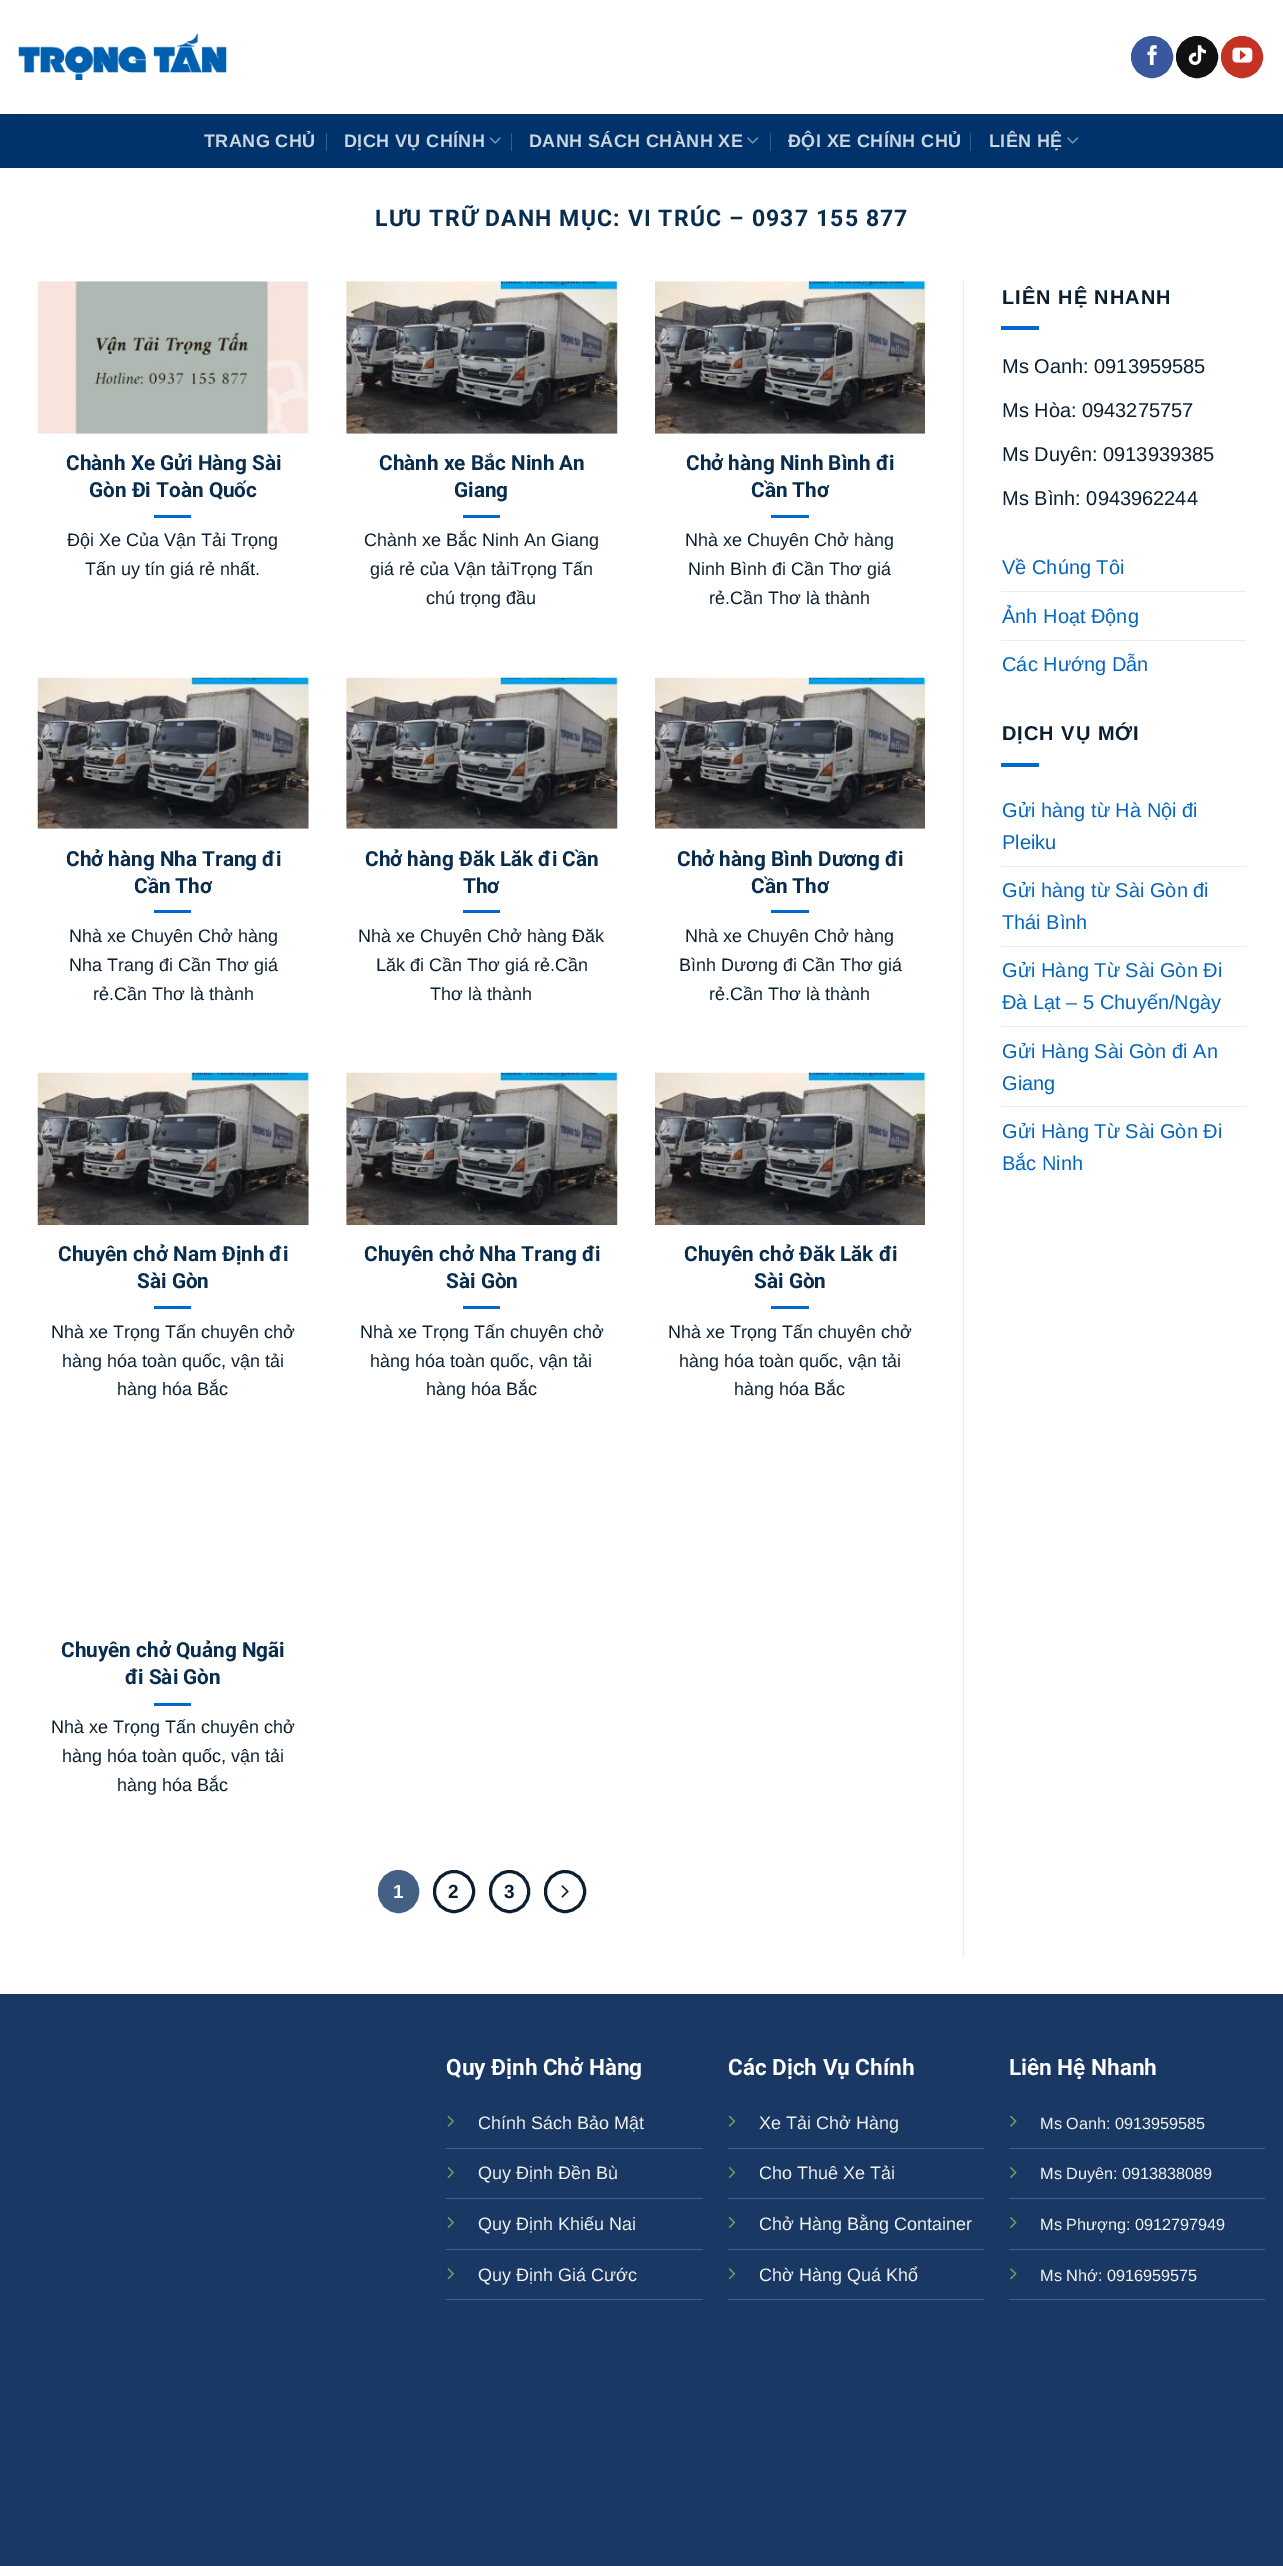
%!PS-Adobe-3.0
%%BoundingBox: 0 0 1283 2566
%%LanguageLevel: 3
%%Pages: 1
%%EndComments
%%BeginProlog
/setink { dup -16 bitshift 255 div exch dup -8 bitshift 255 and 255 div exch 255 and 255 div setrgbcolor } def
/usefont { [ exch dup neg 0 0 3 -1 roll 0 0 ] selectfont } def
/disc { newpath 0 360 arc closepath } def
/rrect { 5 dict begin { /r /h /w /y /x } { exch def } forall
  x r add y moveto x w add y 2 copy h add r arct x w add y h add x 1 index r arct
  x y h add x y r arct x y 2 copy exch w add exch r arct closepath end } def
/drawimage { 5 dict begin { /h /w /y /x /name } { exch def } forall
  gsave x y translate w h scale
  w h 8 [w 0 0 h 0 0] name (r) file false 3 colorimage grestore end } def
%%EndProlog
%%BeginSetup
<< /PageSize [1283 2566] >> setpagedevice
%%EndSetup
%%Page: 1 1
0 2566 translate 1 -1 scale
4 setmiterlimit
16#FFFFFF setink
0 0 1283 2566 rectfill
(img1.raw) 18 33 209 47 drawimage
16#3A589D setink
1152 57 20.5 disc gsave fill grestore
stroke
(img2.raw) 1147 45 10 20 drawimage
16#111111 setink
1197 57 20.5 disc gsave fill grestore
stroke
(img3.raw) 1188 45 18 20 drawimage
16#C33223 setink
1242 57 20.5 disc gsave fill grestore
stroke
(img4.raw) 1232 47 21 16 drawimage
16#00336B setink
0 114 1283 54 rectfill
16#013165 setink
19 114 1246 1 rectfill
/LiberationSans-Bold 18 usefont
16#CCD6E1 setink
204 147 moveto 0.4 0 (TRANG CHỦ) ashow
16#335C89 setink
326 133 1 18 rectfill
16#CCD6E1 setink
344 147 moveto 0.4 0 (DỊCH VỤ CHÍNH) ashow
(img5.raw) 489 137 12 7 drawimage
16#335C89 setink
511 133 1 18 rectfill
16#CCD6E1 setink
529 147 moveto 0.4 0 (DANH SÁCH CHÀNH XE) ashow
(img6.raw) 747 137 12 7 drawimage
16#335C89 setink
770 133 1 18 rectfill
16#CCD6E1 setink
788 147 moveto 0.4 0 (ĐỘI XE CHÍNH CHỦ) ashow
16#335C89 setink
970 133 1 18 rectfill
16#CCD6E1 setink
989 147 moveto 0.4 0 (LIÊN HỆ) ashow
(img6.raw) 1067 137 12 7 drawimage
/Roboto-Bold 23 usefont
16#082D4E setink
375 226 moveto 1.15 0 (LƯU TRỮ DANH MỤC: VI TRÚC – 0937 155 877) ashow
(img7.raw) 37 281 272 153 drawimage
/Roboto-Bold 20.75 usefont
66 470 moveto (Chành Xe Gửi Hàng Sài) show
89 497 moveto (Gòn Đi Toàn Quốc) show
16#0069CC setink
154 515 37 3 rectfill
/LiberationSans-Regular 18 usefont
16#0B1F31 setink
67 546 moveto (Đội Xe Của Vận Tải Trọng) show
85 575 moveto (Tấn uy tín giá rẻ nhất.) show
(img8.raw) 346 281 272 153 drawimage
/Roboto-Bold 20.75 usefont
16#082D4E setink
379 470 moveto (Chành xe Bắc Ninh An) show
454 497 moveto (Giang) show
16#0069CC setink
463 515 37 3 rectfill
/LiberationSans-Regular 18 usefont
16#0B1F31 setink
[
    [(Chành xe Bắc Ninh An Giang) 364 546]
    [(giá rẻ của Vận tảiTrọng Tấn) 370 575]
    [(chú trọng đầu) 426 604]
] { aload pop moveto show } forall
(img9.raw) 655 281 270 153 drawimage
/Roboto-Bold 20.75 usefont
16#082D4E setink
686 470 moveto (Chở hàng Ninh Bình đi) show
751 497 moveto (Cần Thơ) show
16#0069CC setink
771 515 38 3 rectfill
/LiberationSans-Regular 18 usefont
16#0B1F31 setink
[
    [(Nhà xe Chuyên Chở hàng) 685 546]
    [(Ninh Bình đi Cần Thơ giá) 688 575]
    [(rẻ.Cần Thơ là thành) 709 604]
] { aload pop moveto show } forall
(img10.raw) 37 677 272 152 drawimage
/Roboto-Bold 20.75 usefont
16#082D4E setink
66 866 moveto (Chở hàng Nha Trang đi) show
134 893 moveto (Cần Thơ) show
16#0069CC setink
154 910 37 3 rectfill
/LiberationSans-Regular 18 usefont
16#0B1F31 setink
[
    [(Nhà xe Chuyên Chở hàng) 69 942]
    [(Nha Trang đi Cần Thơ giá) 69 971]
    [(rẻ.Cần Thơ là thành) 93 1000]
] { aload pop moveto show } forall
(img11.raw) 346 677 272 152 drawimage
/Roboto-Bold 20.75 usefont
16#082D4E setink
365 866 moveto (Chở hàng Đăk Lăk đi Cần) show
463 893 moveto (Thơ) show
16#0069CC setink
463 910 37 3 rectfill
/LiberationSans-Regular 18 usefont
16#0B1F31 setink
[
    [(Nhà xe Chuyên Chở hàng Đăk) 358 942]
    [(Lăk đi Cần Thơ giá rẻ.Cần) 376 971]
    [(Thơ là thành) 430 1000]
] { aload pop moveto show } forall
(img12.raw) 655 677 270 152 drawimage
/Roboto-Bold 20.75 usefont
16#082D4E setink
677 866 moveto (Chở hàng Bình Dương đi) show
751 893 moveto (Cần Thơ) show
16#0069CC setink
771 910 38 3 rectfill
/LiberationSans-Regular 18 usefont
16#0B1F31 setink
[
    [(Nhà xe Chuyên Chở hàng) 685 942]
    [(Bình Dương đi Cần Thơ giá) 679 971]
    [(rẻ.Cần Thơ là thành) 709 1000]
] { aload pop moveto show } forall
(img13.raw) 37 1072 272 153 drawimage
/Roboto-Bold 20.75 usefont
16#082D4E setink
58 1261 moveto (Chuyên chở Nam Định đi) show
137 1288 moveto (Sài Gòn) show
16#0069CC setink
154 1306 37 3 rectfill
/LiberationSans-Regular 18 usefont
16#0B1F31 setink
[
    [(Nhà xe Trọng Tấn chuyên chở) 51 1338]
    [(hàng hóa toàn quốc, vận tải) 62 1367]
    [(hàng hóa Bắc) 117 1395]
] { aload pop moveto show } forall
(img14.raw) 346 1072 272 153 drawimage
/Roboto-Bold 20.75 usefont
16#082D4E setink
364 1261 moveto (Chuyên chở Nha Trang đi) show
446 1288 moveto (Sài Gòn) show
16#0069CC setink
463 1306 37 3 rectfill
/LiberationSans-Regular 18 usefont
16#0B1F31 setink
[
    [(Nhà xe Trọng Tấn chuyên chở) 360 1338]
    [(hàng hóa toàn quốc, vận tải) 370 1367]
    [(hàng hóa Bắc) 426 1395]
] { aload pop moveto show } forall
(img15.raw) 655 1072 270 153 drawimage
/Roboto-Bold 20.75 usefont
16#082D4E setink
684 1261 moveto (Chuyên chở Đăk Lăk đi) show
754 1288 moveto (Sài Gòn) show
16#0069CC setink
771 1306 38 3 rectfill
/LiberationSans-Regular 18 usefont
16#0B1F31 setink
[
    [(Nhà xe Trọng Tấn chuyên chở) 668 1338]
    [(hàng hóa toàn quốc, vận tải) 679 1367]
    [(hàng hóa Bắc) 734 1395]
] { aload pop moveto show } forall
/Roboto-Bold 20.75 usefont
16#082D4E setink
61 1657 moveto (Chuyên chở Quảng Ngãi) show
125 1684 moveto (đi Sài Gòn) show
16#0069CC setink
154 1703 37 3 rectfill
/LiberationSans-Regular 18 usefont
16#0B1F31 setink
[
    [(Nhà xe Trọng Tấn chuyên chở) 51 1733]
    [(hàng hóa toàn quốc, vận tải) 62 1762]
    [(hàng hóa Bắc) 117 1791]
] { aload pop moveto show } forall
16#446084 setink
379.5 1871.5 38 40 19 rrect gsave fill grestore
3 setlinewidth
stroke
/LiberationSans-Bold 19 usefont
16#FFFFFF setink
393 1898 moveto (1) show
16#0B1F31 setink
434.5 1871.5 39 40 19.5 rrect stroke
448 1898 moveto (2) show
490.5 1871.5 38 40 19 rrect stroke
504 1898 moveto (3) show
545.5 1871.5 39 40 19.5 rrect stroke
(img16.raw) 561 1885 8 13 drawimage
16#ECECEC setink
963 281 1 1675 rectfill
/LiberationSans-Bold 20 usefont
16#0B1F31 setink
1002 304 moveto 1 0 (LIÊN HỆ NHANH) ashow
16#0069CC setink
1001 326 38 4 rectfill
/LiberationSans-Regular 20 usefont
16#0B1F31 setink
[
    [(Ms Oanh: 0913959585) 1002 373]
    [(Ms Hòa: 0943275757) 1002 417]
    [(Ms Duyên: 0913939385) 1002 461]
    [(Ms Bình: 0943962244) 1002 505]
] { aload pop moveto show } forall
16#0566C0 setink
1002 574 moveto (Về Chúng Tôi) show
16#ECECEC setink
1001 591 245 1 rectfill
16#0566C0 setink
1002 623 moveto (Ảnh Hoạt Động) show
16#ECECEC setink
1001 640 245 1 rectfill
16#0566C0 setink
1002 671 moveto (Các Hướng Dẫn) show
/LiberationSans-Bold 20 usefont
16#0B1F31 setink
1002 740 moveto 1 0 (DỊCH VỤ MỚI) ashow
16#0069CC setink
1001 763 38 4 rectfill
/LiberationSans-Regular 20 usefont
16#0566C0 setink
1002 817 moveto (Gửi hàng từ Hà Nội đi) show
1002 849 moveto (Pleiku) show
16#ECECEC setink
1001 866 245 1 rectfill
16#0566C0 setink
1002 897 moveto (Gửi hàng từ Sài Gòn đi) show
1002 929 moveto (Thái Bình) show
16#ECECEC setink
1001 946 245 1 rectfill
16#0566C0 setink
1002 977 moveto (Gửi Hàng Từ Sài Gòn Đi) show
1002 1009 moveto (Đà Lạt – 5 Chuyến/Ngày) show
16#ECECEC setink
1001 1026 245 1 rectfill
16#0566C0 setink
1002 1058 moveto (Gửi Hàng Sài Gòn đi An) show
1002 1090 moveto (Giang) show
16#ECECEC setink
1001 1106 245 1 rectfill
16#0566C0 setink
1002 1138 moveto (Gửi Hàng Từ Sài Gòn Đi) show
1002 1170 moveto (Bắc Ninh) show
16#1A3864 setink
0 1994 1283 572 rectfill
/Roboto-Bold 22.5 usefont
16#FFFFFF setink
446 2075 moveto (Quy Định Chở Hàng) show
16#486083 setink
446 2148 257 1 rectfill
(img17.raw) 447 2115 7 12 drawimage
/LiberationSans-Regular 18 usefont
16#F1F1F1 setink
478 2129 moveto (Chính Sách Bảo Mật) show
16#486083 setink
446 2198 257 1 rectfill
(img18.raw) 447 2167 7 11 drawimage
16#F1F1F1 setink
478 2179 moveto (Quy Định Đền Bù) show
16#486083 setink
446 2249 257 1 rectfill
(img18.raw) 447 2217 7 11 drawimage
16#F1F1F1 setink
478 2230 moveto (Quy Định Khiếu Nai) show
16#486083 setink
446 2299 257 1 rectfill
(img19.raw) 447 2268 7 12 drawimage
16#F1F1F1 setink
478 2281 moveto (Quy Định Giá Cước) show
/Roboto-Bold 22.5 usefont
16#FFFFFF setink
728 2075 moveto (Các Dịch Vụ Chính) show
16#486083 setink
728 2148 256 1 rectfill
(img20.raw) 728 2115 8 12 drawimage
/LiberationSans-Regular 18 usefont
16#F1F1F1 setink
759 2129 moveto (Xe Tải Chở Hàng) show
16#486083 setink
728 2198 256 1 rectfill
(img21.raw) 728 2167 8 11 drawimage
16#F1F1F1 setink
759 2179 moveto (Cho Thuê Xe Tải) show
16#486083 setink
728 2249 256 1 rectfill
(img21.raw) 728 2217 8 11 drawimage
16#F1F1F1 setink
759 2230 moveto (Chở Hàng Bằng Container) show
16#486083 setink
728 2299 256 1 rectfill
(img22.raw) 728 2268 8 12 drawimage
16#F1F1F1 setink
759 2281 moveto (Chờ Hàng Quá Khổ) show
/Roboto-Bold 22.5 usefont
16#FFFFFF setink
1009 2075 moveto (Liên Hệ Nhanh) show
16#486083 setink
1009 2148 256 1 rectfill
(img23.raw) 1010 2115 7 12 drawimage
/LiberationSans-Regular 16.25 usefont
16#F1F1F1 setink
1040 2129 moveto (Ms Oanh: 0913959585) show
16#486083 setink
1009 2198 256 1 rectfill
(img24.raw) 1010 2167 7 11 drawimage
16#F1F1F1 setink
1040 2179 moveto (Ms Duyên: 0913838089) show
16#486083 setink
1009 2249 256 1 rectfill
(img24.raw) 1010 2217 7 11 drawimage
16#F1F1F1 setink
1040 2230 moveto (Ms Phượng: 0912797949) show
16#486083 setink
1009 2299 256 1 rectfill
(img25.raw) 1010 2268 7 12 drawimage
16#F1F1F1 setink
1040 2281 moveto (Ms Nhớ: 0916959575) show
showpage
%%EOF
